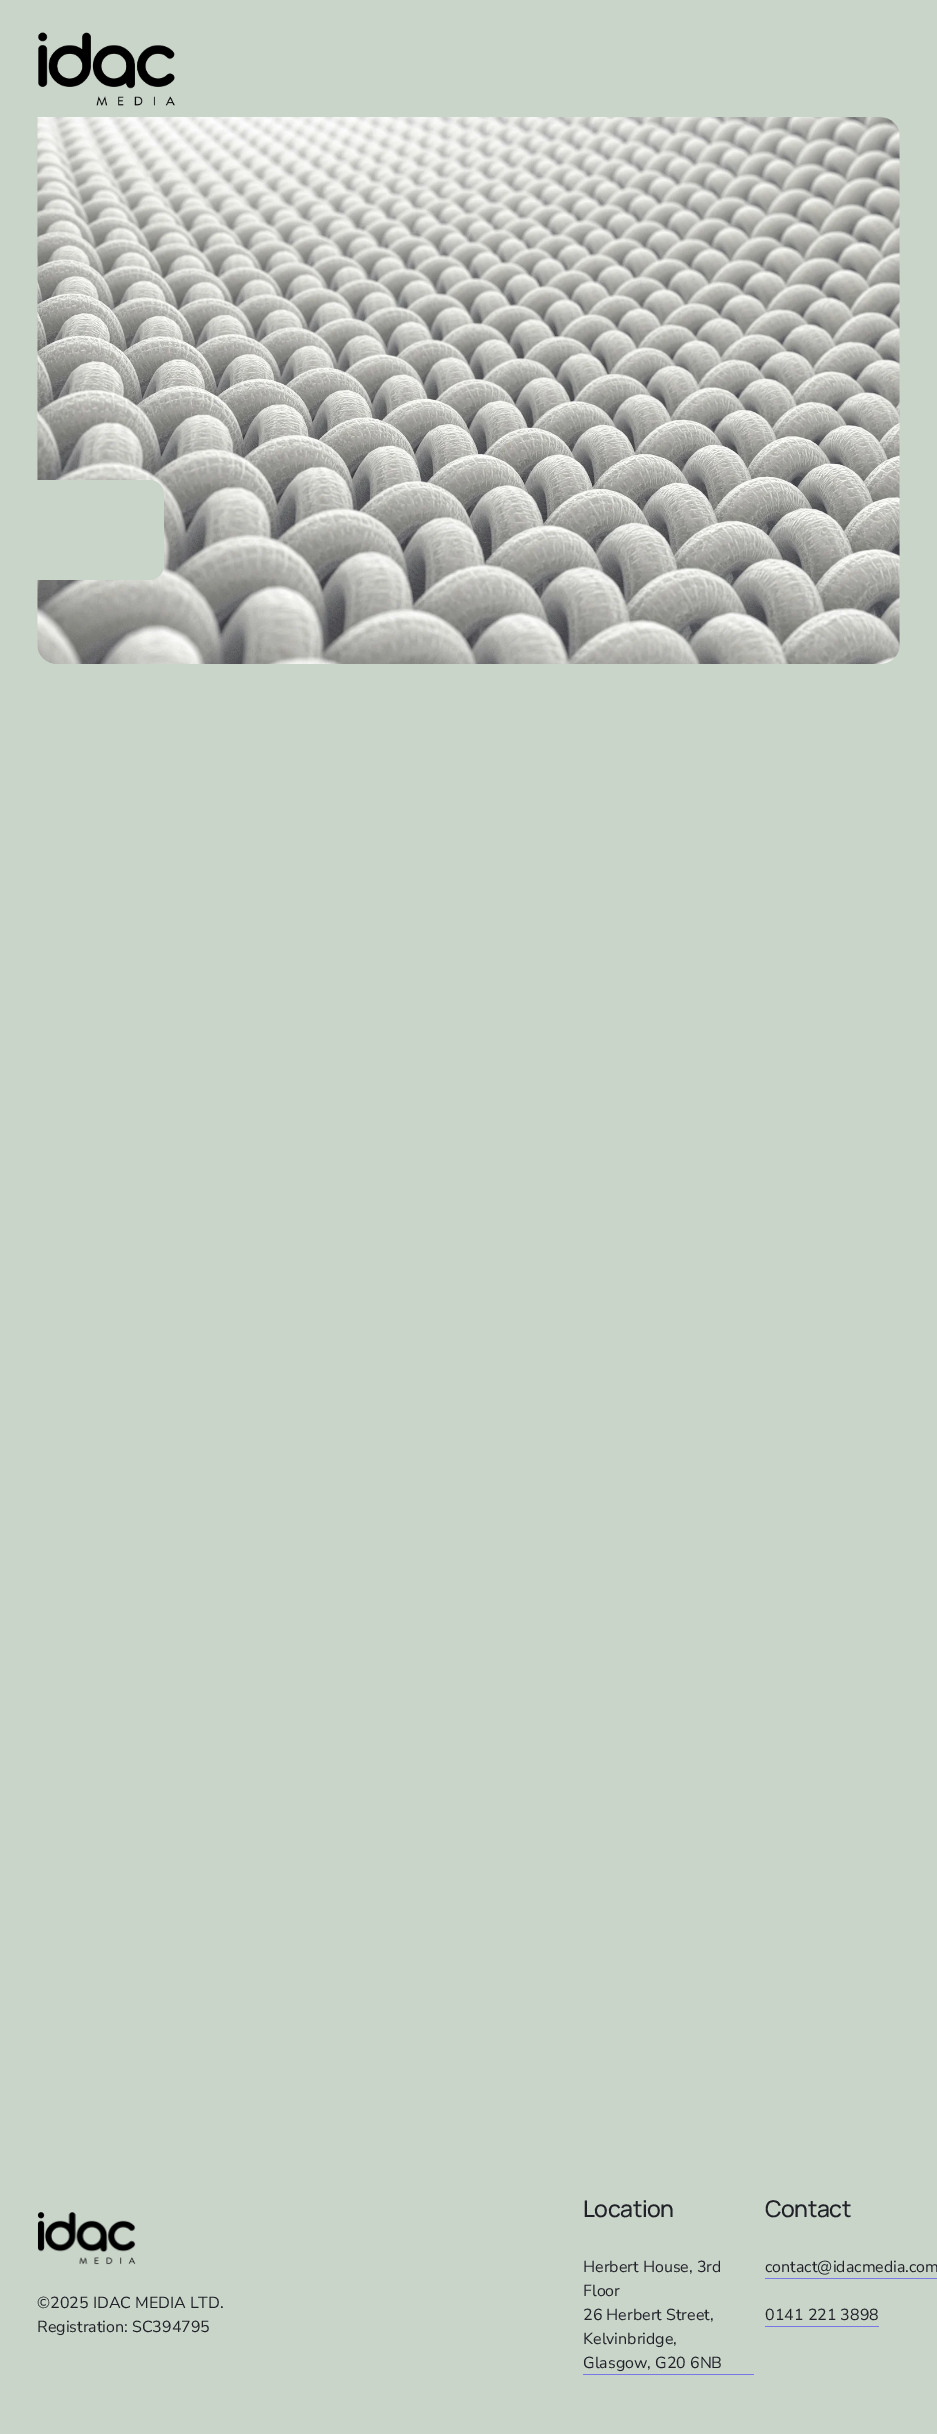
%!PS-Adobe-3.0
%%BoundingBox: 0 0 937 2434
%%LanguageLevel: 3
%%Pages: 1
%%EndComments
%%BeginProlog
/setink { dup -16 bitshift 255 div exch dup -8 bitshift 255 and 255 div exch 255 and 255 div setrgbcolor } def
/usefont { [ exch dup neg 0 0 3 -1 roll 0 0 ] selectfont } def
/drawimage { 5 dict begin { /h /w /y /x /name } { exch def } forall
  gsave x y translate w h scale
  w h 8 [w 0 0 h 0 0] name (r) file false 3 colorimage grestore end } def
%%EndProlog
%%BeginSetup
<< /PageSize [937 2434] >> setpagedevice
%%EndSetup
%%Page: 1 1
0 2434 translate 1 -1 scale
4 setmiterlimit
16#CAD5CA setink
0 0 937 2434 rectfill
(img1.raw) 38 32 137 74 drawimage
(img2.raw) 37 117 863 547 drawimage
37 480 moveto 149 480 lineto 157.5 480 164 486.5 164 495 curveto 164 565 lineto 164 573.5 157.5 580 149 580 curveto 38 580 lineto 37.5 580 37 579.5 37 579 curveto closepath fill
(img3.raw) 37 2212 99 53 drawimage
/Manrope-Medium 23 usefont
16#202228 setink
583 2217 moveto -0.5 0 (Location) ashow
16#7877E6 setink
583 2374 171 1 rectfill
/NunitoSans-Regular 16 usefont
16#202228 setink
[
    [(Herbert House, 3rd) 583 2272]
    [(Floor) 583 2296]
    [(26 Herbert Street,) 583 2320]
    [(Kelvinbridge,) 583 2344]
    [(Glasgow, G20 6NB) 583 2368]
] { aload pop moveto show } forall
/Manrope-Medium 23 usefont
765 2217 moveto -0.5 0 (Contact) ashow
16#7877E6 setink
765 2278 172 1 rectfill
/NunitoSans-Regular 16 usefont
16#202228 setink
765 2272 moveto (contact@idacmedia.com) show
16#7877E6 setink
765 2326 114 1 rectfill
16#202228 setink
[
    [(0141 221 3898) 765 2320]
    [(©2025 IDAC MEDIA LTD.) 37 2308]
    [(Registration: SC394795) 37 2332]
] { aload pop moveto show } forall
showpage
%%EOF
